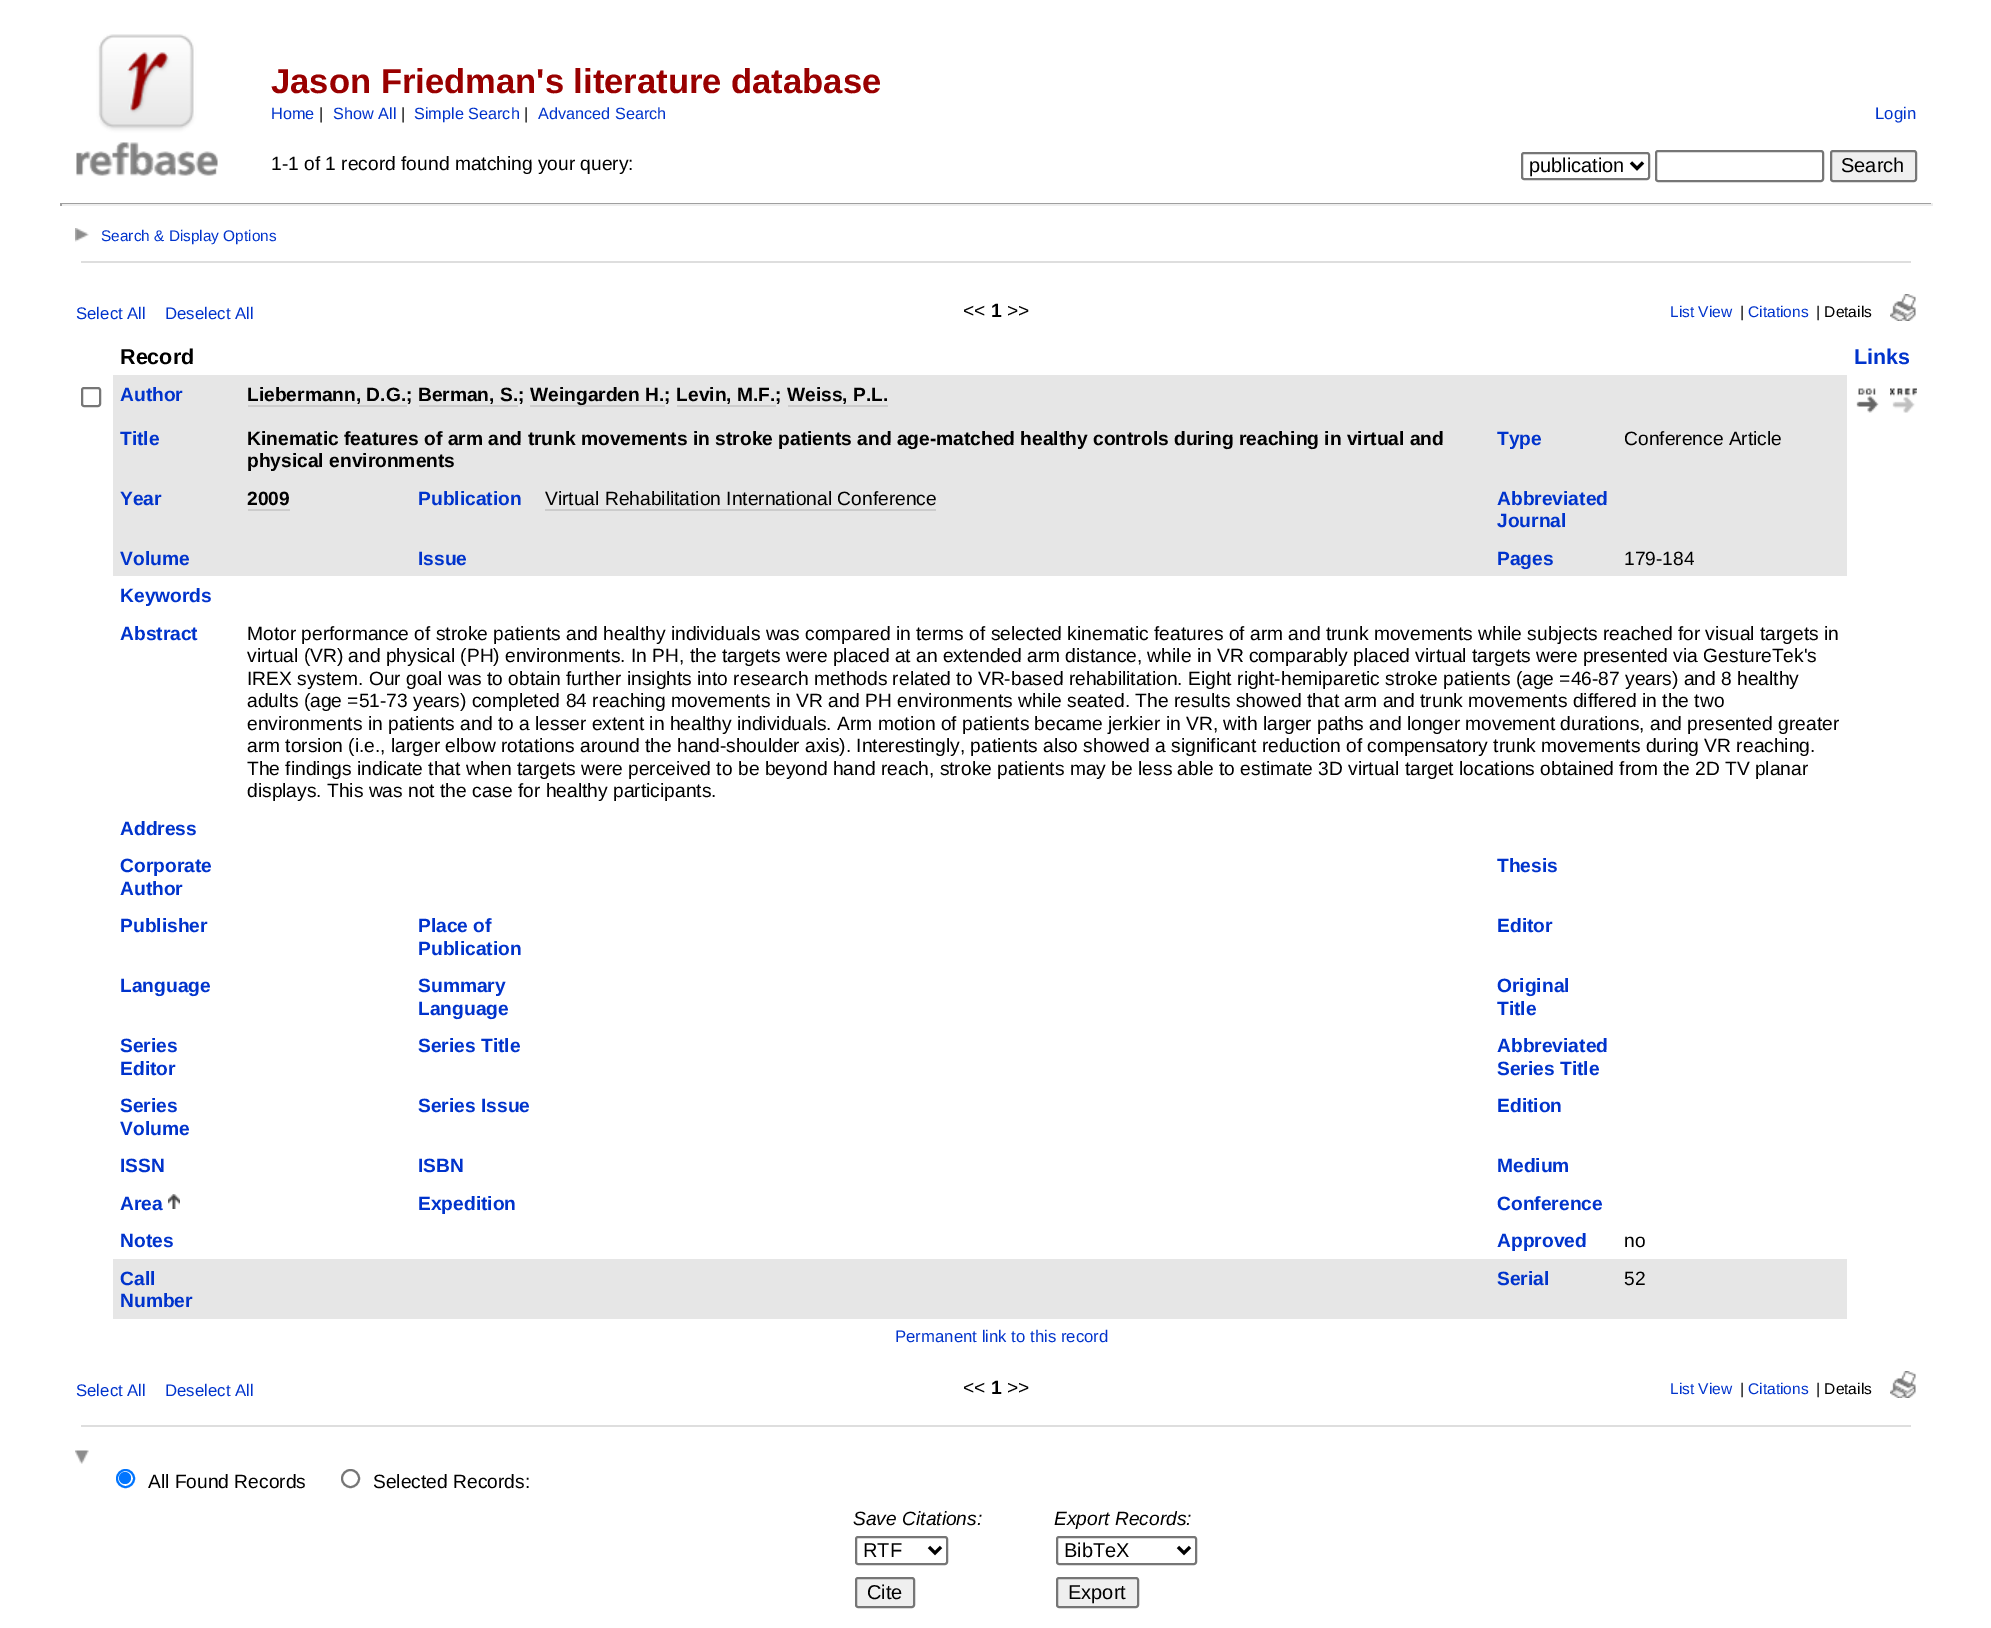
%!PS-Adobe-3.0
%%BoundingBox: 0 0 1991 1628
%%LanguageLevel: 3
%%Pages: 1
%%EndComments
%%BeginProlog
/setink { dup -16 bitshift 255 div exch dup -8 bitshift 255 and 255 div exch 255 and 255 div setrgbcolor } def
/usefont { [ exch dup neg 0 0 3 -1 roll 0 0 ] selectfont } def
/disc { newpath 0 360 arc closepath } def
/rrect { 5 dict begin { /r /h /w /y /x } { exch def } forall
  x r add y moveto x w add y 2 copy h add r arct x w add y h add x 1 index r arct
  x y h add x y r arct x y 2 copy exch w add exch r arct closepath end } def
/drawimage { 5 dict begin { /h /w /y /x /name } { exch def } forall
  gsave x y translate w h scale
  w h 8 [w 0 0 h 0 0] name (r) file false 3 colorimage grestore end } def
%%EndProlog
%%BeginSetup
<< /PageSize [1991 1628] >> setpagedevice
%%EndSetup
%%Page: 1 1
0 1628 translate 1 -1 scale
4 setmiterlimit
16#FFFFFF setink
0 0 1991 1628 rectfill
(img1.raw) 76 34 142 142 drawimage
/LiberationSans-Bold 34.6 usefont
16#990000 setink
271 93 moveto (Jason Friedman's literature database) show
/LiberationSans-Regular 16.25 usefont
16#0033CC setink
271 119 moveto (Home) show
16#000000 setink
319 119 moveto (|) show
16#0033CC setink
333 119 moveto (Show All) show
16#000000 setink
401 119 moveto (|) show
16#0033CC setink
414 119 moveto (Simple Search) show
16#000000 setink
524 119 moveto (|) show
16#0033CC setink
538 119 moveto (Advanced Search) show
/LiberationSans-Regular 16.75 usefont
1875 119 moveto (Login) show
16#767676 setink
2 setlinewidth
1522 153 127 26 2 rrect stroke
16#000000 setink
3 setlinewidth
1631 162.5 moveto 1637 168.5 lineto 1643 162.5 lineto stroke
/LiberationSans-Regular 20 usefont
1529 172 moveto (publication) show
16#767676 setink
2 setlinewidth
1656 151 167 30 2 rrect stroke
16#EFEFEF setink
1831 151 85 30 2 rrect gsave fill grestore
16#767676 setink
stroke
16#000000 setink
1841 172 moveto (Search) show
/LiberationSans-Regular 19.2 usefont
271 170 moveto (1-1 of 1 record found matching your query:) show
[
    [60 203 1872 1 16#9F9F9F]
    [1931 203 2 3 16#EEEEEE]
    [60 204 1872 2 16#EEEEEE]
    [60 203 2 3 16#9F9F9F]
] { aload pop setink rectfill } forall
(img2.raw) 75 228 14 14 drawimage
/LiberationSans-Regular 15.4 usefont
16#0033CC setink
101 241 moveto (Search & Display Options) show
16#DEDEDE setink
81 261 1830 2 rectfill
/LiberationSans-Regular 16.75 usefont
16#0033CC setink
76 319 moveto (Select All) show
165 319 moveto (Deselect All) show
/LiberationSans-Regular 19.2 usefont
16#000000 setink
963 317 moveto (<<) show
/LiberationSans-Bold 19.2 usefont
991 317 moveto (1) show
/LiberationSans-Regular 19.2 usefont
1007 317 moveto (>>) show
/LiberationSans-Regular 15.5 usefont
16#0033CC setink
1670 317 moveto (List View) show
16#000000 setink
1740 317 moveto (|) show
16#0033CC setink
1748 317 moveto (Citations) show
16#000000 setink
1816 317 moveto (| Details) show
(img3.raw) 1890 294 26 27 drawimage
/LiberationSans-Bold 21.5 usefont
120 364 moveto (Record) show
16#0033CC setink
1854 364 moveto (Links) show
16#767676 setink
82 388 18 18 2 rrect stroke
16#E6E6E6 setink
113 375 1734 44 rectfill
/LiberationSans-Bold 19.2 usefont
16#0033CC setink
120 401 moveto (Author) show
16#000000 setink
247 401 moveto (Liebermann, D.G.; Berman, S.;) show
[
    [248 405 159 2 16#CCCCCC]
    [419 405 99 2 16#CCCCCC]
    [530 405 135 2 16#CCCCCC]
] { aload pop setink rectfill } forall
16#000000 setink
530 401 moveto (Weingarden H.; Levin, M.F.; Weiss, P.L.) show
16#CCCCCC setink
677 405 99 2 rectfill
788 405 100 2 rectfill
(img4.raw) 1856 388 23 25 drawimage
(img5.raw) 1890 388 27 25 drawimage
16#E6E6E6 setink
113 419 1734 60 rectfill
16#0033CC setink
120 445 moveto (Title) show
16#000000 setink
247 445 moveto (Kinematic features of arm and trunk movements in stroke patients and age-matched healthy controls during reaching in virtual and) show
247 467 moveto (physical environments) show
16#0033CC setink
1497 445 moveto (Type) show
/LiberationSans-Regular 19.2 usefont
16#000000 setink
1624 445 moveto (Conference Article) show
16#E6E6E6 setink
113 479 1734 60 rectfill
/LiberationSans-Bold 19.2 usefont
16#0033CC setink
120 505 moveto (Year) show
16#000000 setink
247 505 moveto (2009) show
16#CCCCCC setink
248 509 42 2 rectfill
16#0033CC setink
418 505 moveto (Publication) show
/LiberationSans-Regular 19.2 usefont
16#000000 setink
545 505 moveto (Virtual Rehabilitation International Conference) show
16#CCCCCC setink
545 509 391 2 rectfill
/LiberationSans-Bold 19.2 usefont
16#0033CC setink
1497 505 moveto (Abbreviated) show
1497 527 moveto (Journal) show
16#E6E6E6 setink
113 539 1734 37 rectfill
16#0033CC setink
[
    [(Volume) 120 565]
    [(Issue) 418 565]
    [(Pages) 1497 565]
] { aload pop moveto show } forall
/LiberationSans-Regular 19.2 usefont
16#000000 setink
1624 565 moveto (179-184) show
/LiberationSans-Bold 19.2 usefont
16#0033CC setink
120 602 moveto (Keywords) show
120 640 moveto (Abstract) show
/LiberationSans-Regular 19.2 usefont
16#000000 setink
[
    [(Motor performance of stroke patients and healthy individuals was compared in terms of selected kinematic features of arm and trunk movements while subjects reached for visual targets in) 247 640]
    [(virtual \(VR\) and physical \(PH\) environments. In PH, the targets were placed at an extended arm distance, while in VR comparably placed virtual targets were presented via GestureTek's) 247 662]
    [(IREX system. Our goal was to obtain further insights into research methods related to VR-based rehabilitation. Eight right-hemiparetic stroke patients \(age =46-87 years\) and 8 healthy) 247 685]
    [(adults \(age =51-73 years\) completed 84 reaching movements in VR and PH environments while seated. The results showed that arm and trunk movements differed in the two) 247 707]
    [(environments in patients and to a lesser extent in healthy individuals. Arm motion of patients became jerkier in VR, with larger paths and longer movement durations, and presented greater) 247 730]
    [(arm torsion \(i.e., larger elbow rotations around the hand-shoulder axis\). Interestingly, patients also showed a significant reduction of compensatory trunk movements during VR reaching.) 247 752]
    [(The findings indicate that when targets were perceived to be beyond hand reach, stroke patients may be less able to estimate 3D virtual target locations obtained from the 2D TV planar) 247 775]
    [(displays. This was not the case for healthy participants.) 247 797]
] { aload pop moveto show } forall
/LiberationSans-Bold 19.2 usefont
16#0033CC setink
[
    [(Address) 120 835]
    [(Corporate) 120 872]
    [(Author) 120 895]
    [(Thesis) 1497 872]
    [(Publisher) 120 932]
    [(Place of) 418 932]
    [(Publication) 418 955]
    [(Editor) 1497 932]
    [(Language) 120 992]
    [(Summary) 418 992]
    [(Language) 418 1015]
    [(Original) 1497 992]
    [(Title) 1497 1015]
    [(Series) 120 1052]
    [(Editor) 120 1075]
    [(Series Title) 418 1052]
    [(Abbreviated) 1497 1052]
    [(Series Title) 1497 1075]
    [(Series) 120 1112]
    [(Volume) 120 1135]
    [(Series Issue) 418 1112]
    [(Edition) 1497 1112]
    [(ISSN) 120 1172]
    [(ISBN) 418 1172]
    [(Medium) 1497 1172]
    [(Area) 120 1210]
] { aload pop moveto show } forall
(img6.raw) 168 1194 12 15 drawimage
[
    [(Expedition) 418 1210]
    [(Conference) 1497 1210]
    [(Notes) 120 1247]
    [(Approved) 1497 1247]
] { aload pop moveto show } forall
/LiberationSans-Regular 19.2 usefont
16#000000 setink
1624 1247 moveto (no) show
16#E6E6E6 setink
113 1259 1734 60 rectfill
/LiberationSans-Bold 19.2 usefont
16#0033CC setink
[
    [(Call) 120 1285]
    [(Number) 120 1307]
    [(Serial) 1497 1285]
] { aload pop moveto show } forall
/LiberationSans-Regular 19.2 usefont
16#000000 setink
1624 1285 moveto (52) show
/LiberationSans-Regular 16.75 usefont
16#0033CC setink
[
    [(Permanent link to this record) 895 1342]
    [(Select All) 76 1396]
    [(Deselect All) 165 1396]
] { aload pop moveto show } forall
/LiberationSans-Regular 19.2 usefont
16#000000 setink
963 1394 moveto (<<) show
/LiberationSans-Bold 19.2 usefont
991 1394 moveto (1) show
/LiberationSans-Regular 19.2 usefont
1007 1394 moveto (>>) show
/LiberationSans-Regular 15.5 usefont
16#0033CC setink
1670 1394 moveto (List View) show
16#000000 setink
1740 1394 moveto (|) show
16#0033CC setink
1748 1394 moveto (Citations) show
16#000000 setink
1816 1394 moveto (| Details) show
(img3.raw) 1890 1371 26 27 drawimage
16#DEDEDE setink
81 1425 1830 2 rectfill
(img7.raw) 75 1450 14 14 drawimage
16#0075FF setink
125.5 1478.5 8.5 disc stroke
125 1478 6 disc fill
/LiberationSans-Regular 19.2 usefont
16#000000 setink
148 1488 moveto (All Found Records) show
16#767676 setink
350.5 1478.5 8.5 disc stroke
16#000000 setink
373 1488 moveto (Selected Records:) show
/LiberationSans-Italic 19.2 usefont
853 1525 moveto (Save Citations:) show
16#767676 setink
856 1537 91 27 2 rrect stroke
16#000000 setink
3 setlinewidth
929 1547 moveto 935 1553 lineto 941 1547 lineto stroke
/LiberationSans-Regular 20 usefont
863 1557 moveto (RTF) show
16#EFEFEF setink
856 1578 58 29 2 rrect gsave fill grestore
16#767676 setink
2 setlinewidth
stroke
16#000000 setink
867 1599 moveto (Cite) show
/LiberationSans-Italic 19.2 usefont
1054 1525 moveto (Export Records:) show
16#767676 setink
1057 1537 139 27 2 rrect stroke
16#000000 setink
3 setlinewidth
1178 1547 moveto 1184 1553 lineto 1190 1547 lineto stroke
/LiberationSans-Regular 20 usefont
1064 1557 moveto (BibTeX) show
16#EFEFEF setink
1057 1578 81 29 2 rrect gsave fill grestore
16#767676 setink
2 setlinewidth
stroke
16#000000 setink
1068 1599 moveto (Export) show
showpage
%%EOF
